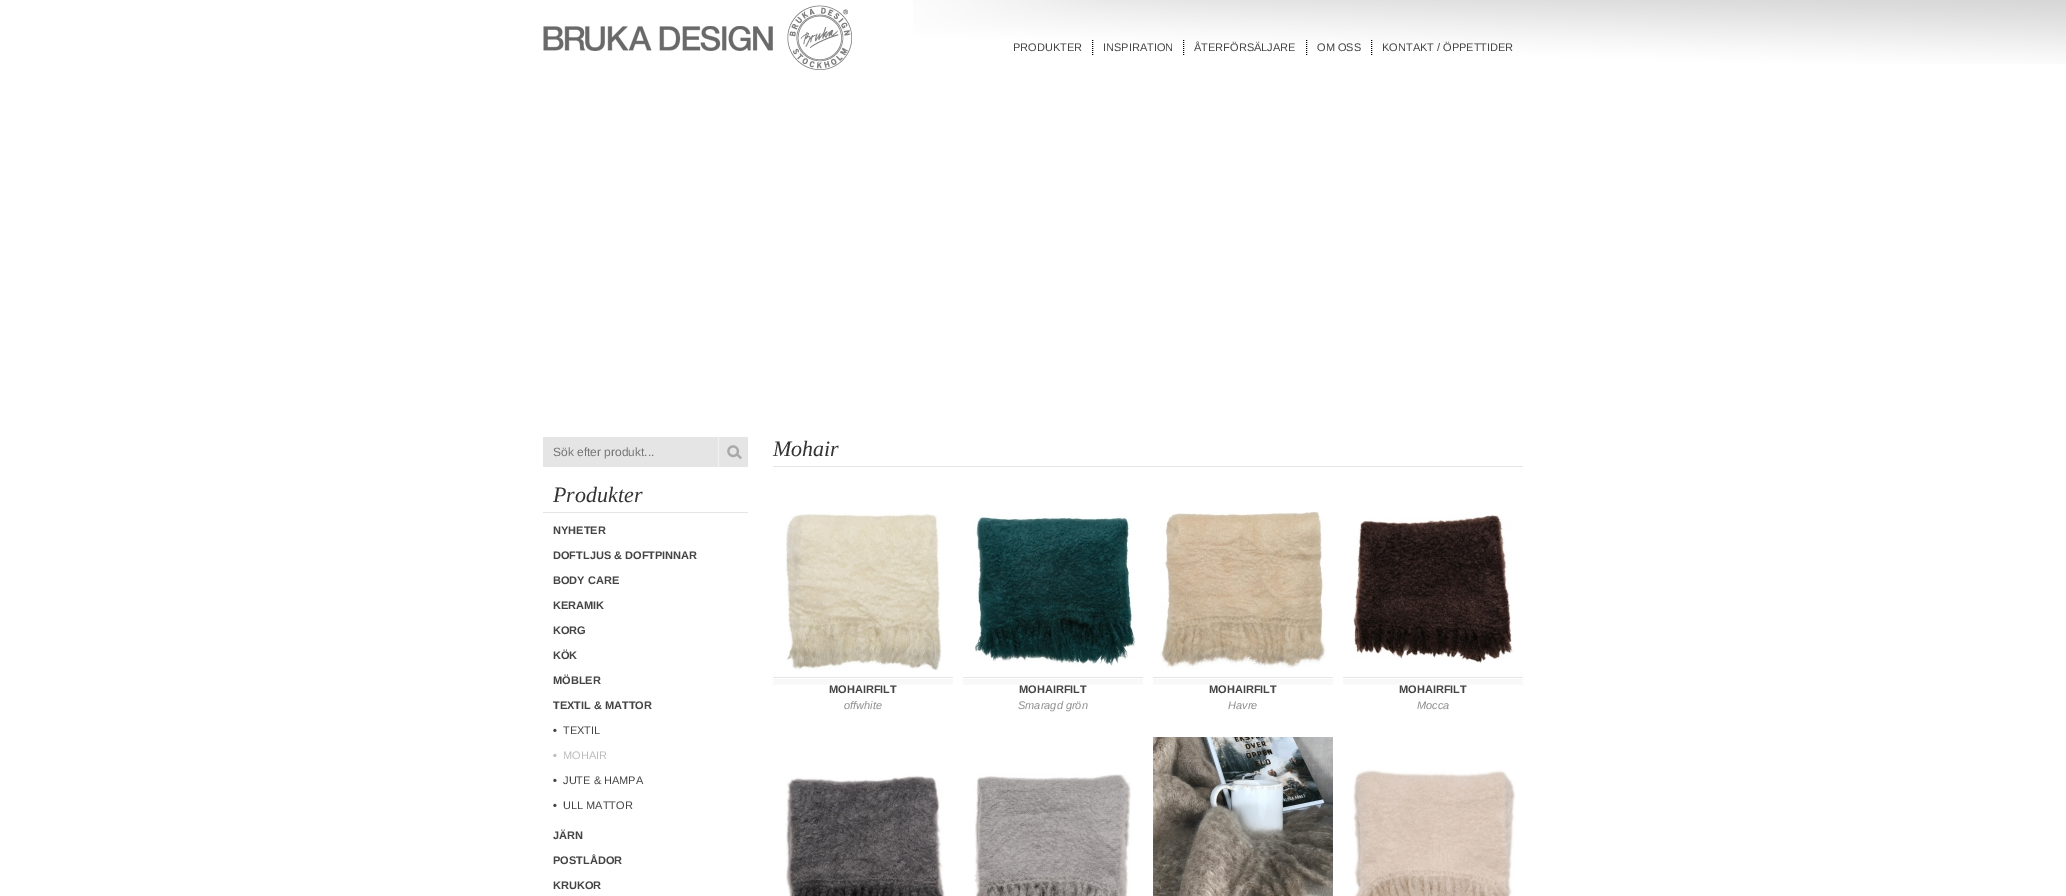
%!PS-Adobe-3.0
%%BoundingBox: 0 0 2066 896
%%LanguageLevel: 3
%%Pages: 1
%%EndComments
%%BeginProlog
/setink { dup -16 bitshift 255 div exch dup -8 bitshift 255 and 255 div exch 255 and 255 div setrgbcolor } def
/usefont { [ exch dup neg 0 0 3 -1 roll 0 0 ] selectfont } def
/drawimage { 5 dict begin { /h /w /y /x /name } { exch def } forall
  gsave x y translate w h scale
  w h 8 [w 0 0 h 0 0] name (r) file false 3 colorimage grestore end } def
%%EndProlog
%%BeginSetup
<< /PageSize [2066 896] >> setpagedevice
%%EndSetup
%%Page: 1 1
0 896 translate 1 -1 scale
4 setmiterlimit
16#FFFFFF setink
0 0 2066 896 rectfill
(img1.raw) 913 0 1153 64 drawimage
(img2.raw) 543 5 309 65 drawimage
/LiberationSans-Regular 11 usefont
16#444444 setink
1013 51 moveto (PRODUKTER) show
16#000000 setink
[1 1] 0 setdash
1092.5 40 moveto 1092.5 55 lineto stroke
16#444444 setink
1103 51 moveto (INSPIRATION) show
16#000000 setink
1183.5 40 moveto 1183.5 55 lineto stroke
16#444444 setink
1194 51 moveto (ÅTERFÖRSÄLJARE) show
16#000000 setink
1306.5 40 moveto 1306.5 55 lineto stroke
16#444444 setink
1317 51 moveto (OM OSS) show
16#000000 setink
1371.5 40 moveto 1371.5 55 lineto stroke
16#444444 setink
1382 51 moveto (KONTAKT / ÖPPETTIDER) show
16#E5E5E5 setink
543 437 175 30 rectfill
/LiberationSans-Regular 12 usefont
16#757575 setink
553 456 moveto (Sök efter produkt...) show
16#E5E5E5 setink
719 437 29 30 rectfill
(img3.raw) 727 445 15 15 drawimage
16#F2F2F2 setink
718 437 1 30 rectfill
16#E5E5E5 setink
543 512 205 1 rectfill
/LiberationSerif-Italic 22 usefont
16#333333 setink
553 502 moveto (Produkter) show
/LiberationSans-Bold 11 usefont
16#444444 setink
[
    [(NYHETER) 553 534]
    [(DOFTLJUS & DOFTPINNAR) 553 559]
    [(BODY CARE) 553 584]
    [(KERAMIK) 553 609]
    [(KORG) 553 634]
    [(KÖK) 553 659]
    [(MÖBLER) 553 684]
    [(TEXTIL & MATTOR) 553 709]
    [(•) 553 734]
] { aload pop moveto show } forall
/LiberationSans-Regular 11 usefont
563 734 moveto (TEXTIL) show
/LiberationSans-Bold 11 usefont
16#BCBCBC setink
553 759 moveto (•) show
/LiberationSans-Regular 11 usefont
563 759 moveto (MOHAIR) show
/LiberationSans-Bold 11 usefont
16#444444 setink
553 784 moveto (•) show
/LiberationSans-Regular 11 usefont
563 784 moveto (JUTE & HAMPA) show
/LiberationSans-Bold 11 usefont
553 809 moveto (•) show
/LiberationSans-Regular 11 usefont
563 809 moveto (ULL MATTOR) show
/LiberationSans-Bold 11 usefont
[
    [(JÄRN) 553 839]
    [(POSTLÅDOR) 553 864]
    [(KRUKOR) 553 889]
] { aload pop moveto show } forall
16#E5E5E5 setink
773 466 750 1 rectfill
/LiberationSerif-Italic 22 usefont
16#333333 setink
773 456 moveto (Mohair) show
(img4.raw) 785 513 157 158 drawimage
(img5.raw) 773 677 180 8 drawimage
/LiberationSans-Bold 11 usefont
16#444444 setink
829 693 moveto (MOHAIRFILT) show
/LiberationSans-Italic 11 usefont
16#8F8F8F setink
844 709 moveto (offwhite) show
(img6.raw) 974 516 161 150 drawimage
(img5.raw) 963 677 180 8 drawimage
/LiberationSans-Bold 11 usefont
16#444444 setink
1019 693 moveto (MOHAIRFILT) show
/LiberationSans-Italic 11 usefont
16#8F8F8F setink
1018 709 moveto (Smaragd grön) show
(img7.raw) 1160 511 166 159 drawimage
(img5.raw) 1153 677 180 8 drawimage
/LiberationSans-Bold 11 usefont
16#444444 setink
1209 693 moveto (MOHAIRFILT) show
/LiberationSans-Italic 11 usefont
16#8F8F8F setink
1228 709 moveto (Havre) show
(img8.raw) 1353 514 160 149 drawimage
(img5.raw) 1343 677 180 8 drawimage
/LiberationSans-Bold 11 usefont
16#444444 setink
1399 693 moveto (MOHAIRFILT) show
/LiberationSans-Italic 11 usefont
16#8F8F8F setink
1417 709 moveto (Mocca) show
(img9.raw) 785 775 160 121 drawimage
(img10.raw) 974 774 157 122 drawimage
(img11.raw) 1153 737 180 159 drawimage
(img12.raw) 1353 769 163 127 drawimage
showpage
%%EOF
